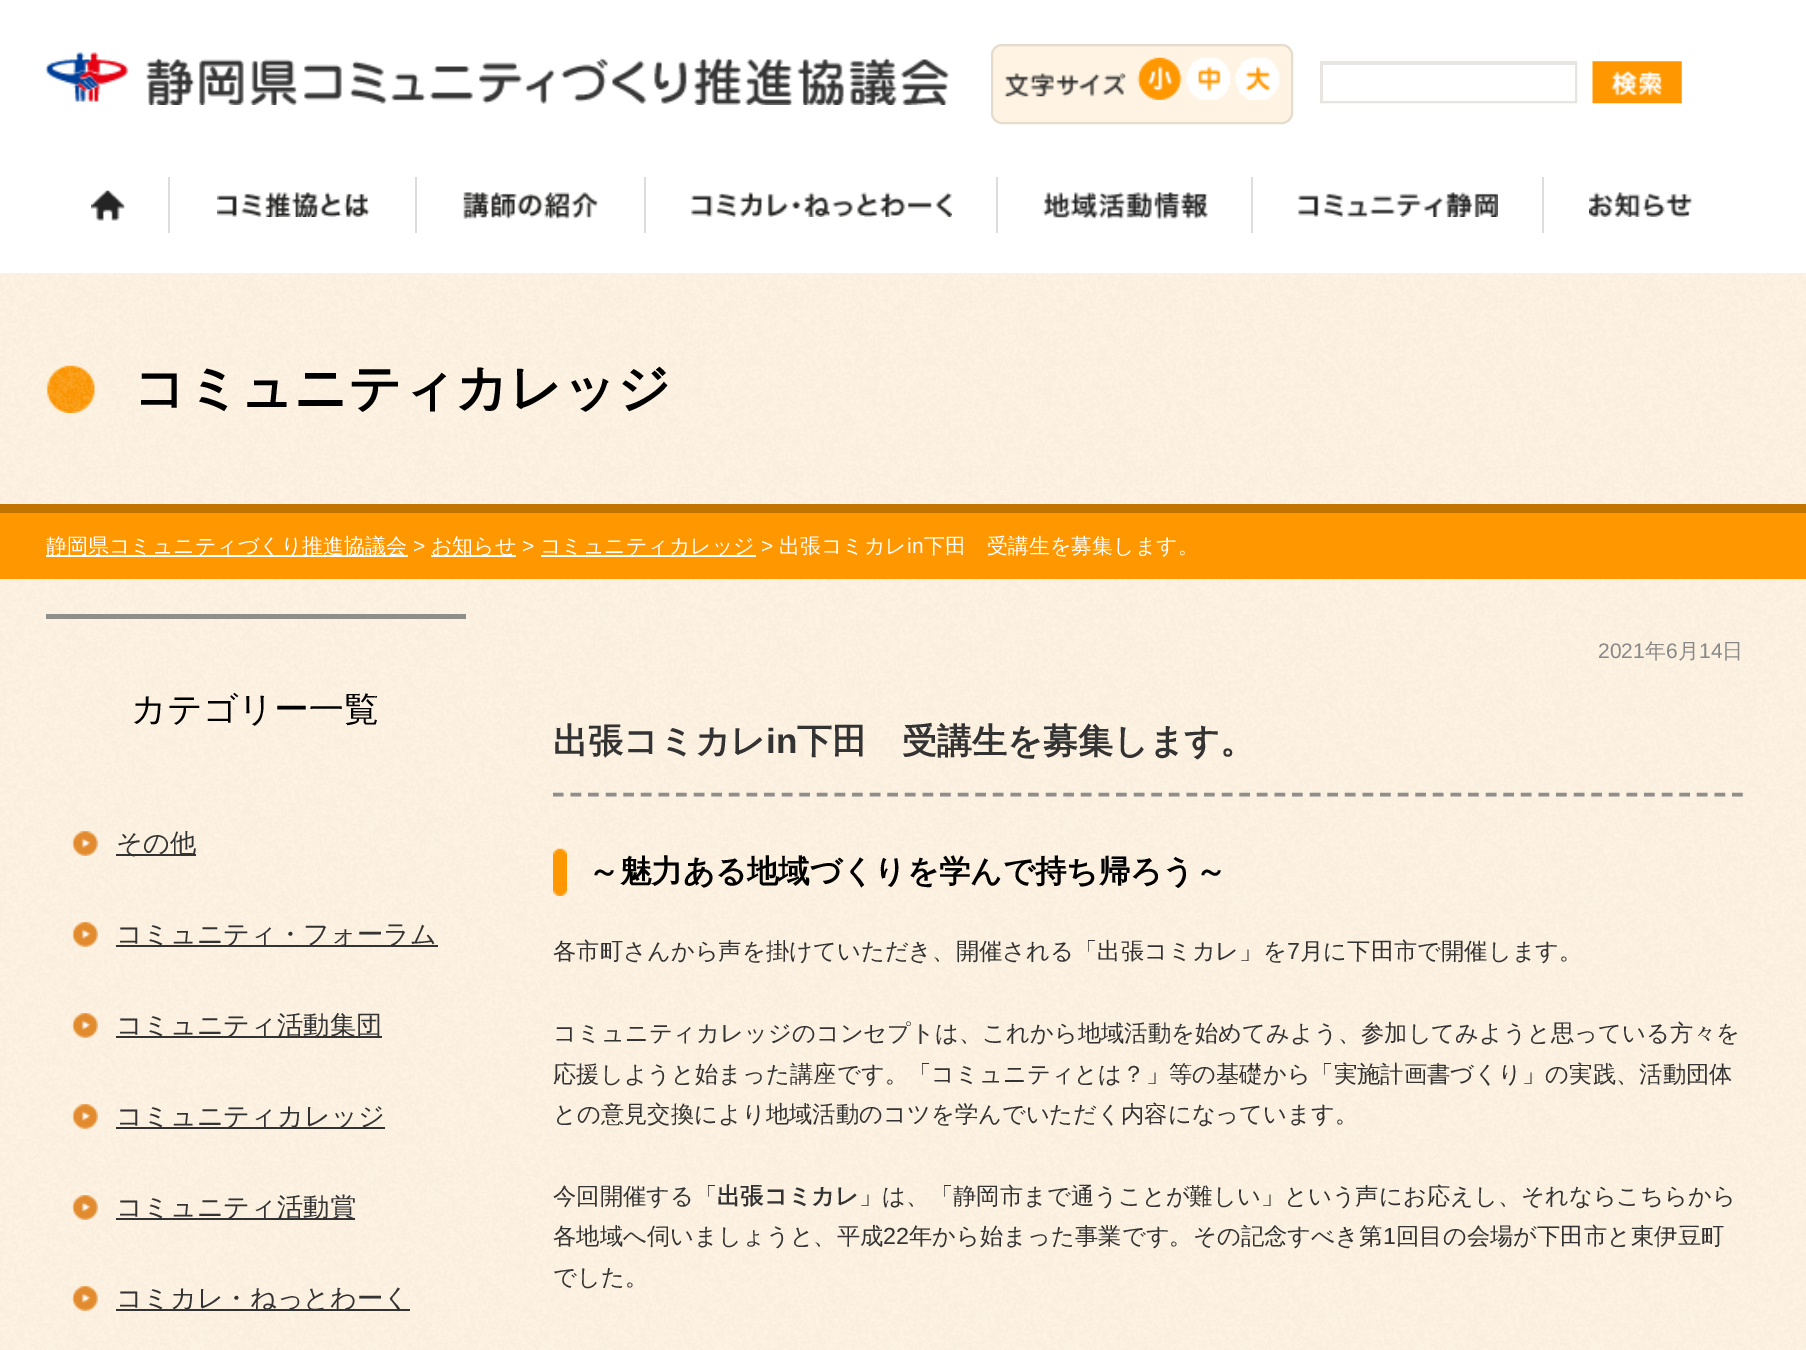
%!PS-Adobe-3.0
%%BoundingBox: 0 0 1806 1350
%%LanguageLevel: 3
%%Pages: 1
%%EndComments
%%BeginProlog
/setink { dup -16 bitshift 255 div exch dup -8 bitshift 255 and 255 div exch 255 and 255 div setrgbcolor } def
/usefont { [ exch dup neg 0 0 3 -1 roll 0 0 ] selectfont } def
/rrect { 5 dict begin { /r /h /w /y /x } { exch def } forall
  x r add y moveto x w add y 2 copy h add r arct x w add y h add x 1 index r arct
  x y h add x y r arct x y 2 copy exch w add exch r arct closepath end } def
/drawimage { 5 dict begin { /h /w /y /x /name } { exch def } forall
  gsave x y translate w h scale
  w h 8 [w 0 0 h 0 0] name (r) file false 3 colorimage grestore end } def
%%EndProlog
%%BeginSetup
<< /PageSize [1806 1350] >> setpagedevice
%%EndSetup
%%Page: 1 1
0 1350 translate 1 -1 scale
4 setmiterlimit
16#FFFFFF setink
0 0 1806 1350 rectfill
(img1.raw) 45 52 904 53 drawimage
16#FFF4E3 setink
991 44 302 80 11 rrect fill
(img2.raw) 1004 73 122 24 drawimage
16#E6DCCD setink
2 setlinewidth
992 45 300 78 10 rrect stroke
(img3.raw) 1137 57 45 43 drawimage
(img4.raw) 1186 57 45 43 drawimage
(img5.raw) 1235 57 45 43 drawimage
gsave
1321 63 254 39 rectclip
16#E6E6E6 setink
1148 -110 moveto 1748 -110 lineto 1748 275 lineto 1148 275 lineto closepath 1323 65 moveto 1577 65 lineto 1577 103 lineto 1323 103 lineto closepath eofill
grestore
16#E8E4DF setink
1321 62 255 40 rectstroke
(img6.raw) 1592 61 90 43 drawimage
(img7.raw) 91 190 34 31 drawimage
(img8.raw) 217 192 153 25 drawimage
16#DDDDDD setink
168 177 2 56 rectfill
(img9.raw) 463 192 136 27 drawimage
415 177 2 56 rectfill
(img10.raw) 691 192 261 25 drawimage
644 177 2 56 rectfill
(img11.raw) 1043 192 165 27 drawimage
996 177 2 56 rectfill
(img12.raw) 1298 192 200 25 drawimage
1251 177 2 56 rectfill
(img13.raw) 1589 192 104 25 drawimage
1542 177 2 56 rectfill
(img14.raw) 0 273 1806 1077 drawimage
16#C27300 setink
0 504 1806 9 rectfill
(img15.raw) 46 365 49 48 drawimage
/WenQuanYiZenHei-Bold 52.5 usefont
16#000000 setink
133 406 moveto (コミュニティカレッジ) show
16#FF9700 setink
0 513 1806 66 rectfill
16#FFFFFF setink
46 555 362 2 rectfill
/WenQuanYiZenHei-Medium 21 usefont
46 553 moveto (静岡県コミュニティづくり推進協議会) show
/LiberationSans-Regular 21 usefont
413 553 moveto (>) show
431 555 85 2 rectfill
/WenQuanYiZenHei-Medium 21 usefont
431 553 moveto (お知らせ) show
/LiberationSans-Regular 21 usefont
522 553 moveto (>) show
541 555 215 2 rectfill
/WenQuanYiZenHei-Medium 21 usefont
540 553 moveto (コミュニティカレッジ) show
/LiberationSans-Regular 21 usefont
761 553 moveto (>) show
/WenQuanYiZenHei-Medium 21 usefont
779 553 moveto (出張コミカレ) show
/LiberationSans-Regular 21 usefont
907 553 moveto (in) show
/WenQuanYiZenHei-Medium 21 usefont
924 553 moveto (下田　受講生を募集します。) show
16#908E8A setink
46 614 420 5 rectfill
/WenQuanYiZenHei-Medium 35 usefont
16#000000 setink
131 721 moveto (カテゴリー一覧) show
(img16.raw) 71 831 27 25 drawimage
16#333333 setink
116 854 80 2 rectfill
/WenQuanYiZenHei-Medium 26.25 usefont
116 852 moveto (その他) show
(img17.raw) 71 922 27 25 drawimage
116 945 322 2 rectfill
116 943 moveto (コミュニティ・フォーラム) show
(img18.raw) 71 1013 27 25 drawimage
116 1036 266 2 rectfill
116 1034 moveto (コミュニティ活動集団) show
(img19.raw) 71 1104 27 25 drawimage
116 1127 269 2 rectfill
116 1125 moveto (コミュニティカレッジ) show
(img20.raw) 71 1195 27 25 drawimage
116 1218 239 2 rectfill
116 1216 moveto (コミュニティ活動賞) show
(img21.raw) 71 1286 27 25 drawimage
116 1309 294 2 rectfill
116 1307 moveto (コミカレ・ねっとわーく) show
/LiberationSans-Regular 21 usefont
16#888888 setink
1598 658 moveto (2021) show
/WenQuanYiZenHei-Medium 21 usefont
1645 658 moveto (年) show
/LiberationSans-Regular 21 usefont
1666 658 moveto (6) show
/WenQuanYiZenHei-Medium 21 usefont
1678 658 moveto (月) show
/LiberationSans-Regular 21 usefont
1699 658 moveto (14) show
/WenQuanYiZenHei-Medium 21 usefont
1722 658 moveto (日) show
16#908E8A setink
3.5 setlinewidth
[10.5 7.1] 0 setdash
553 794.5 moveto 1743 794.5 lineto stroke
/WenQuanYiZenHei-Bold 35 usefont
16#333333 setink
553 753 moveto (出張コミカレ) show
/LiberationSans-Bold 35 usefont
766 753 moveto (in) show
/WenQuanYiZenHei-Bold 35 usefont
797 753 moveto (下田　受講生を募集します。) show
(img22.raw) 553 848 14 48 drawimage
/WenQuanYiZenHei-Bold 31.5 usefont
16#000000 setink
588 882 moveto (～魅力ある地域づくりを学んで持ち帰ろう～) show
/WenQuanYiZenHei-Medium 23.33 usefont
16#333333 setink
553 959 moveto (各市町さんから声を掛けていただき、開催される「出張コミカレ」を) show
/LiberationSans-Regular 23.33 usefont
1287 959 moveto (7) show
/WenQuanYiZenHei-Medium 23.33 usefont
[
    [(月に下田市で開催します。) 1300 959]
    [(コミュニティカレッジのコンセプトは、これから地域活動を始めてみよう、参加してみようと思っている方々を) 553 1041]
    [(応援しようと始まった講座です。「コミュニティとは？」等の基礎から「実施計画書づくり」の実践、活動団体) 553 1082]
    [(との意見交換により地域活動のコツを学んでいただく内容になっています。) 553 1122]
    [(今回開催する「) 553 1204]
] { aload pop moveto show } forall
/WenQuanYiZenHei-Bold 23.33 usefont
717 1204 moveto (出張コミカレ) show
/WenQuanYiZenHei-Medium 23.33 usefont
859 1204 moveto (」は、「静岡市まで通うことが難しい」という声にお応えし、それならこちらから) show
553 1244 moveto (各地域へ伺いましょうと、平成) show
/LiberationSans-Regular 23.33 usefont
883 1244 moveto (22) show
/WenQuanYiZenHei-Medium 23.33 usefont
909 1244 moveto (年から始まった事業です。その記念すべき第) show
/LiberationSans-Regular 23.33 usefont
1383 1244 moveto (1) show
/WenQuanYiZenHei-Medium 23.33 usefont
1396 1244 moveto (回目の会場が下田市と東伊豆町) show
553 1285 moveto (でした。) show
showpage
%%EOF
